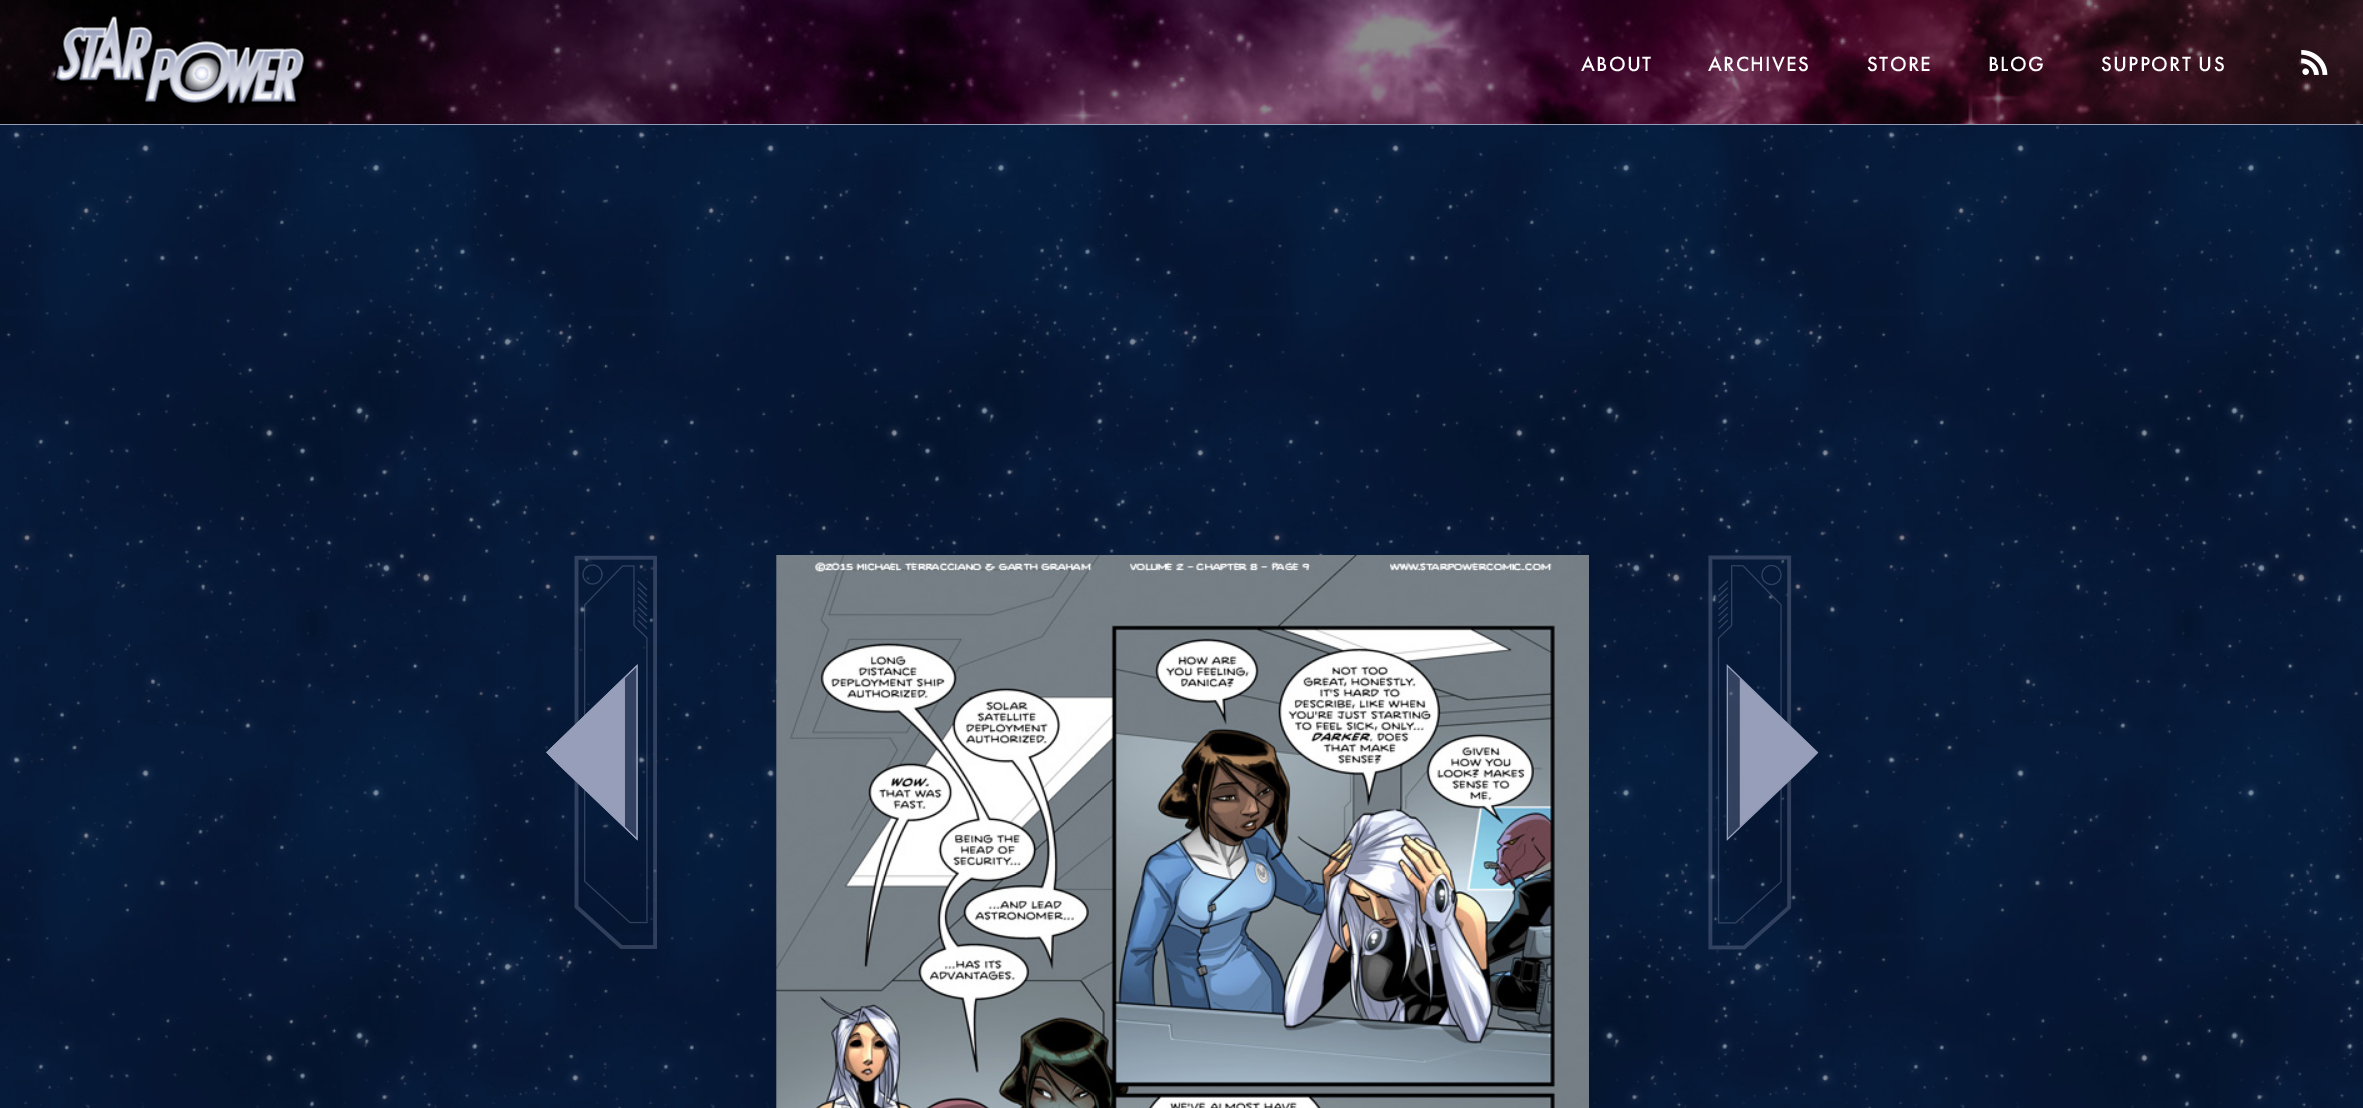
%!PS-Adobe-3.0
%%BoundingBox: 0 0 2363 1108
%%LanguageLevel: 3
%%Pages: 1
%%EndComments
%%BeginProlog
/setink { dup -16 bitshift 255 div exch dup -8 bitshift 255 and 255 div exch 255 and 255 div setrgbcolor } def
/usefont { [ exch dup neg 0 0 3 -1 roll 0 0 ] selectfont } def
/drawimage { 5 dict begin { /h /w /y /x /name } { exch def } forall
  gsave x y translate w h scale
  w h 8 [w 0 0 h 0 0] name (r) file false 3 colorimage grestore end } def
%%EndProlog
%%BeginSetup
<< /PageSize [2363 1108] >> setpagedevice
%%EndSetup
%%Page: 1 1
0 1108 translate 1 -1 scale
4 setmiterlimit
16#FFFFFF setink
0 0 2363 1108 rectfill
(img1.raw) 0 125 2363 983 drawimage
(img2.raw) 0 0 2363 124 drawimage
16#979EB9 setink
0 124 2363 1 rectfill
(img3.raw) 54 16 254 93 drawimage
/FuturaPT-Medium 21.25 usefont
16#FFFFFF setink
1581 71 moveto 1.25 0 (ABOUT) ashow
1708 71 moveto 1.25 0 (ARCHIVES) ashow
1867 71 moveto 1.25 0 (STORE) ashow
1988 71 moveto 1.25 0 (BLOG) ashow
2101 71 moveto 1.25 0 (SUPPORT US) ashow
(img4.raw) 2301 50 27 25 drawimage
(img5.raw) 546 555 111 394 drawimage
(img6.raw) 776 555 813 553 drawimage
(img7.raw) 1708 555 111 395 drawimage
showpage
%%EOF
